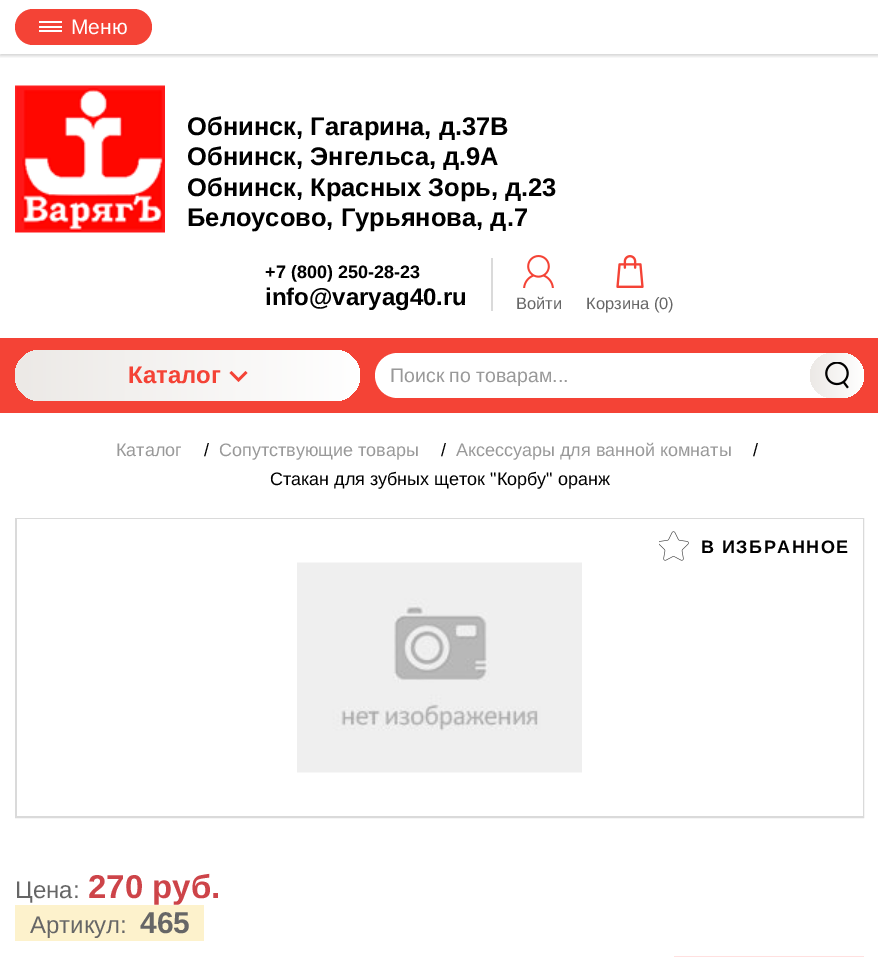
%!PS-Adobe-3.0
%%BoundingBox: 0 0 878 957
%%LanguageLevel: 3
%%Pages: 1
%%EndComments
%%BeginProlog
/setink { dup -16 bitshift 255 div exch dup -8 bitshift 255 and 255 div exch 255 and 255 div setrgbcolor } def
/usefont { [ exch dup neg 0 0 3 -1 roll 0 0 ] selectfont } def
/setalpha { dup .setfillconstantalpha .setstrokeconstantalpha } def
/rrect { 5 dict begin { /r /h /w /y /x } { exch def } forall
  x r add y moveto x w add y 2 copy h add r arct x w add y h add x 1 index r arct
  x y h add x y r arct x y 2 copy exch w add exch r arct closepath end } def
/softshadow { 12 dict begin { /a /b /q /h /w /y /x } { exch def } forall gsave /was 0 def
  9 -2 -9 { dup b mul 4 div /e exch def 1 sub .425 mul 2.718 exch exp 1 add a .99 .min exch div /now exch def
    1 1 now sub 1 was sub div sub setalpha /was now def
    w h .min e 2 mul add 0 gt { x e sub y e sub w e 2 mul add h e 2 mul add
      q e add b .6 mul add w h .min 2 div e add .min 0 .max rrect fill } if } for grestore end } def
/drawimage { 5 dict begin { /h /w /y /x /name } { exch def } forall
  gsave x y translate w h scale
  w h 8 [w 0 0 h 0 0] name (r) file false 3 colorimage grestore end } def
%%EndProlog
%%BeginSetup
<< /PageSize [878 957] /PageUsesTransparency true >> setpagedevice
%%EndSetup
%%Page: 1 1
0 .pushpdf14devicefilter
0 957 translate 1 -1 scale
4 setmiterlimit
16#FFFFFF setink
0 0 878 957 rectfill
gsave
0 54 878 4 rectclip
16#000000 setink
0 2 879 54 0 1.5 0.16 softshadow
grestore
16#F44336 setink
15 9 137 36 18 rrect fill
[
    [39 21 23 2 16#FFFFFF]
    [39 26 23 2 16#FFFFFF]
    [39 30 23 2 16#FFFFFF]
] { aload pop setink rectfill } forall
/LiberationSans-Regular 21 usefont
71 34 moveto (Меню) show
(img1.raw) 15 85 150 148 drawimage
/LiberationSans-Bold 25.5 usefont
16#000000 setink
[
    [(Обнинск, Гагарина, д.37В) 187 135]
    [(Обнинск, Энгельса, д.9А) 187 165]
    [(Обнинск, Красных Зорь, д.23) 187 196]
    [(Белоусово, Гурьянова, д.7) 187 226]
] { aload pop moveto show } forall
/LiberationSans-Bold 18 usefont
265 278 moveto (+7 \(800\) 250-28-23) show
/LiberationSans-Bold 24 usefont
265 305 moveto (info@varyag40.ru) show
16#DADADA setink
491 258 2 53 rectfill
(img2.raw) 523 255 31 33 drawimage
/LiberationSans-Regular 16.5 usefont
16#666666 setink
516 309 moveto (Войти) show
(img3.raw) 616 255 28 33 drawimage
586 309 moveto (Корзина \(0\)) show
16#F44336 setink
0 338 878 75 rectfill
gsave 15 350 345 51 25.5 rrect clip newpath
<< /ShadingType 2 /ColorSpace /DeviceRGB /Coords [15 375 360 375] /Extend [true true] /Function << /FunctionType 2 /Domain [0 1] /C0 [0.925 0.914 0.902] /C1 [1 1 1] /N 1 >> >> shfill grestore
/LiberationSans-Bold 24 usefont
128 383 moveto (Каталог) show
247.5 373 moveto 245.5 371 lineto 238.5 378 lineto 231.5 371 lineto 229.5 373 lineto 238.5 382 lineto fill
16#FFFFFF setink
375 353 489 45 22.5 rrect fill
/LiberationSans-Regular 19.5 usefont
16#999999 setink
390 382 moveto (Поиск по товарам...) show
gsave 810 353 54 45 22.5 rrect clip newpath
<< /ShadingType 2 /ColorSpace /DeviceRGB /Coords [810 375 864 375] /Extend [true true] /Function << /FunctionType 2 /Domain [0 1] /C0 [0.925 0.914 0.902] /C1 [1 1 1] /N 1 >> >> shfill grestore
(img4.raw) 825 362 24 27 drawimage
/LiberationSans-Regular 18 usefont
116 456 moveto (Каталог) show
16#000000 setink
204 456 moveto (/) show
16#999999 setink
219 456 moveto (Сопутствующие товары) show
16#000000 setink
441 456 moveto (/) show
16#999999 setink
456 456 moveto (Аксессуары для ванной комнаты) show
16#000000 setink
753 456 moveto (/) show
270 485 moveto (Стакан для зубных щеток "Корбу" оранж) show
16#DADADA setink
2 setlinewidth
16 519 847 298 rectstroke
16#FFFFFF setink
17 519 846 297 rectfill
(img5.raw) 297 562 285 211 drawimage
(img6.raw) 659 531 30 30 drawimage
/LiberationSans-Bold 18 usefont
16#000000 setink
701 553 moveto 1.5 0 (В ИЗБРАННОЕ) ashow
/LiberationSans-Regular 24 usefont
16#666666 setink
15 898 moveto (Цена:) show
/LiberationSans-Bold 33 usefont
16#CD4449 setink
88 898 moveto (270 руб.) show
16#FDF2CC setink
15 905 189 36 rectfill
/LiberationSans-Regular 24 usefont
16#666666 setink
30 933 moveto (Артикул:) show
/LiberationSans-Bold 30 usefont
140 933 moveto (465) show
16#FFE0E0 setink
674 956 190 1 rectfill
.poppdf14devicefilter showpage
%%EOF
